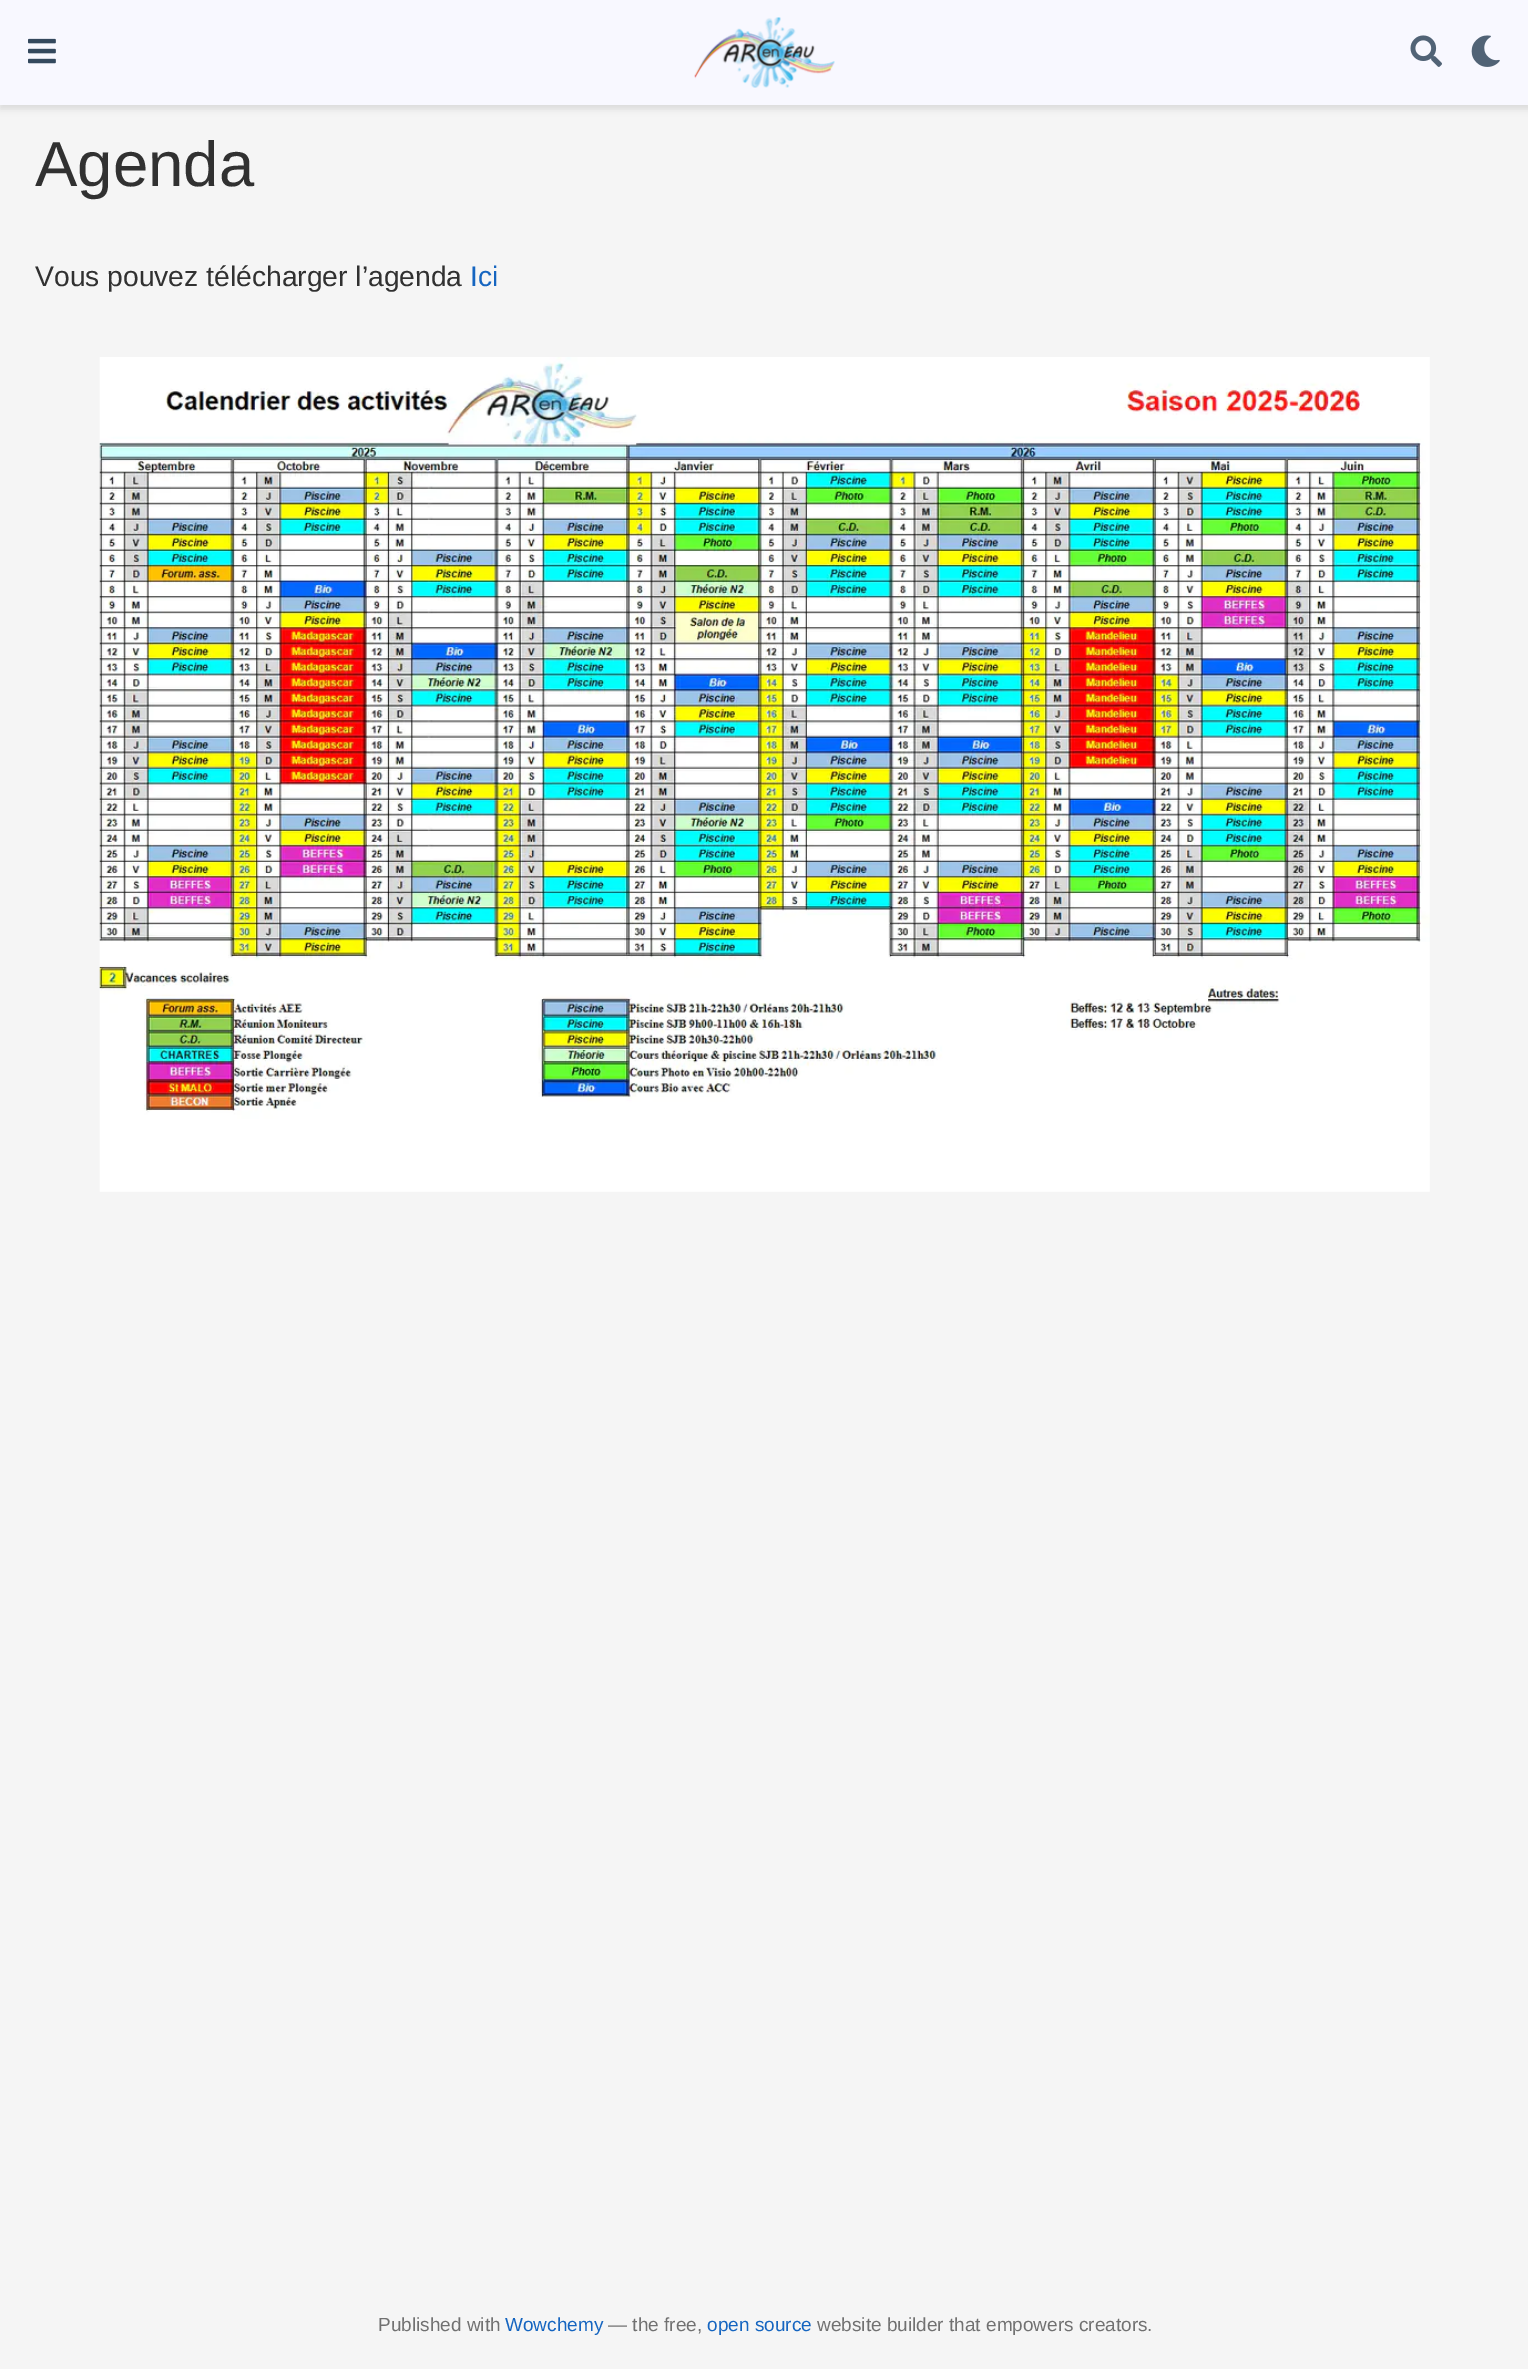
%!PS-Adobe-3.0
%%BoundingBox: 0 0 1528 2369
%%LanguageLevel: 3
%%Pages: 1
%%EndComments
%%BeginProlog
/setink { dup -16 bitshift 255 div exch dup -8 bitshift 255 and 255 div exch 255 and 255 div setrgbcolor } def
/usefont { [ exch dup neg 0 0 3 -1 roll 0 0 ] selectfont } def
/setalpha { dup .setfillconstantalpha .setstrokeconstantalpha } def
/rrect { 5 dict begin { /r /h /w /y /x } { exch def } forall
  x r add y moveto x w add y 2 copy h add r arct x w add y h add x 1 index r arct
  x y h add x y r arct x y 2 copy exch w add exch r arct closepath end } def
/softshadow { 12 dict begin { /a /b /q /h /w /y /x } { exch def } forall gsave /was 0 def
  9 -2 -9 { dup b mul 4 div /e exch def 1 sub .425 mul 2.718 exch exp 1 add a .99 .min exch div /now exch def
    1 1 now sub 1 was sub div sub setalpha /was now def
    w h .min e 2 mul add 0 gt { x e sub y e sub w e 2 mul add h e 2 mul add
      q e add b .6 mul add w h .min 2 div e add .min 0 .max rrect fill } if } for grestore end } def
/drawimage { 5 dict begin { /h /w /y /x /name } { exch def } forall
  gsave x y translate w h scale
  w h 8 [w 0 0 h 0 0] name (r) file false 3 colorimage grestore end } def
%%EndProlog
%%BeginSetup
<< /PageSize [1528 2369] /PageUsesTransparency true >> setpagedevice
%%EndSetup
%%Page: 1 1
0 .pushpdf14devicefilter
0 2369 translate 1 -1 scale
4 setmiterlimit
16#F5F5F5 setink
0 0 1528 2369 rectfill
16#000000 setink
0 4 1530 105 0 3.5 0.11 softshadow
16#F8F8FF setink
0 0 1528 105 rectfill
(img1.raw) 28 38 28 26 drawimage
(img2.raw) 694 17 141 71 drawimage
(img3.raw) 1410 35 32 32 drawimage
(img4.raw) 1471 35 29 32 drawimage
/LiberationSans-Regular 63.5 usefont
16#313131 setink
35 186 moveto (Agenda) show
/LiberationSans-Regular 28.25 usefont
35 286 moveto (Vous pouvez télécharger l’agenda) show
16#1565C0 setink
470 286 moveto (Ici) show
(img5.raw) 99 357 1331 835 drawimage
/LiberationSans-Regular 19 usefont
16#717171 setink
378 2331 moveto (Published with) show
16#1565C0 setink
505 2331 moveto (Wowchemy) show
16#717171 setink
608 2331 moveto (— the free,) show
16#1565C0 setink
707 2331 moveto (open source) show
16#717171 setink
817 2331 moveto (website builder that empowers creators.) show
.poppdf14devicefilter showpage
%%EOF
